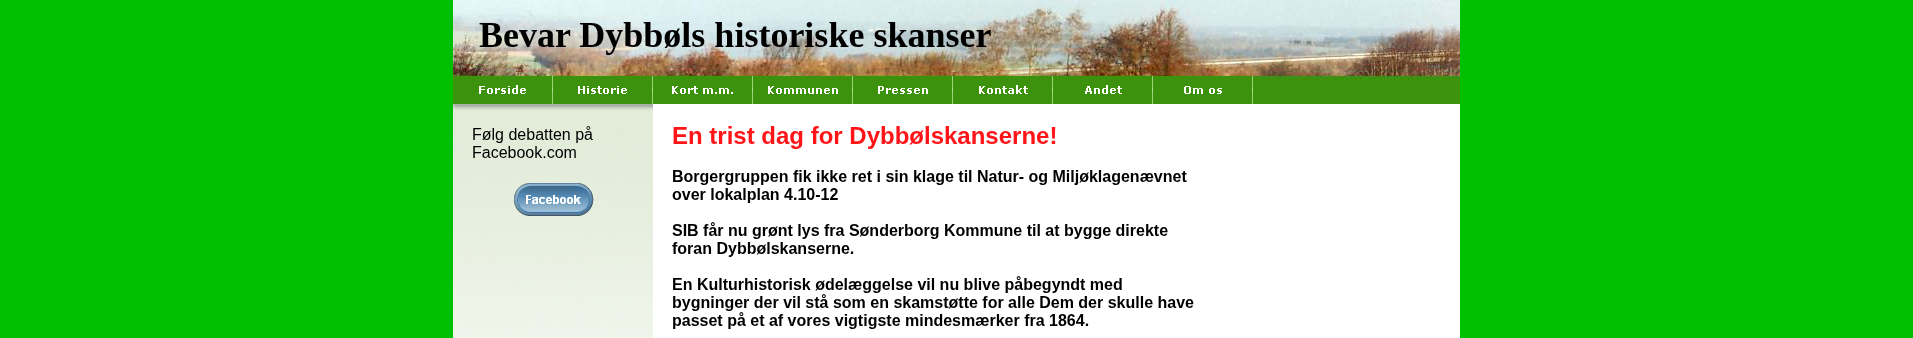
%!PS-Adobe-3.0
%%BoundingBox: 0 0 1913 338
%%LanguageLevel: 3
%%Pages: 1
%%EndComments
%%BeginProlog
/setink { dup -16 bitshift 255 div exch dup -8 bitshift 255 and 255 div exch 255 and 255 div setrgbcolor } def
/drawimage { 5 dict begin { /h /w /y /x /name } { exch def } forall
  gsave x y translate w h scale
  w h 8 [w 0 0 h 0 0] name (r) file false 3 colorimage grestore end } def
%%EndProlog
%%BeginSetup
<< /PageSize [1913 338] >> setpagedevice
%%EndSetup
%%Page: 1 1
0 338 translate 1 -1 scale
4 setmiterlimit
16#00C000 setink
0 0 1913 338 rectfill
(img1.raw) 453 0 1007 338 drawimage
showpage
%%EOF
